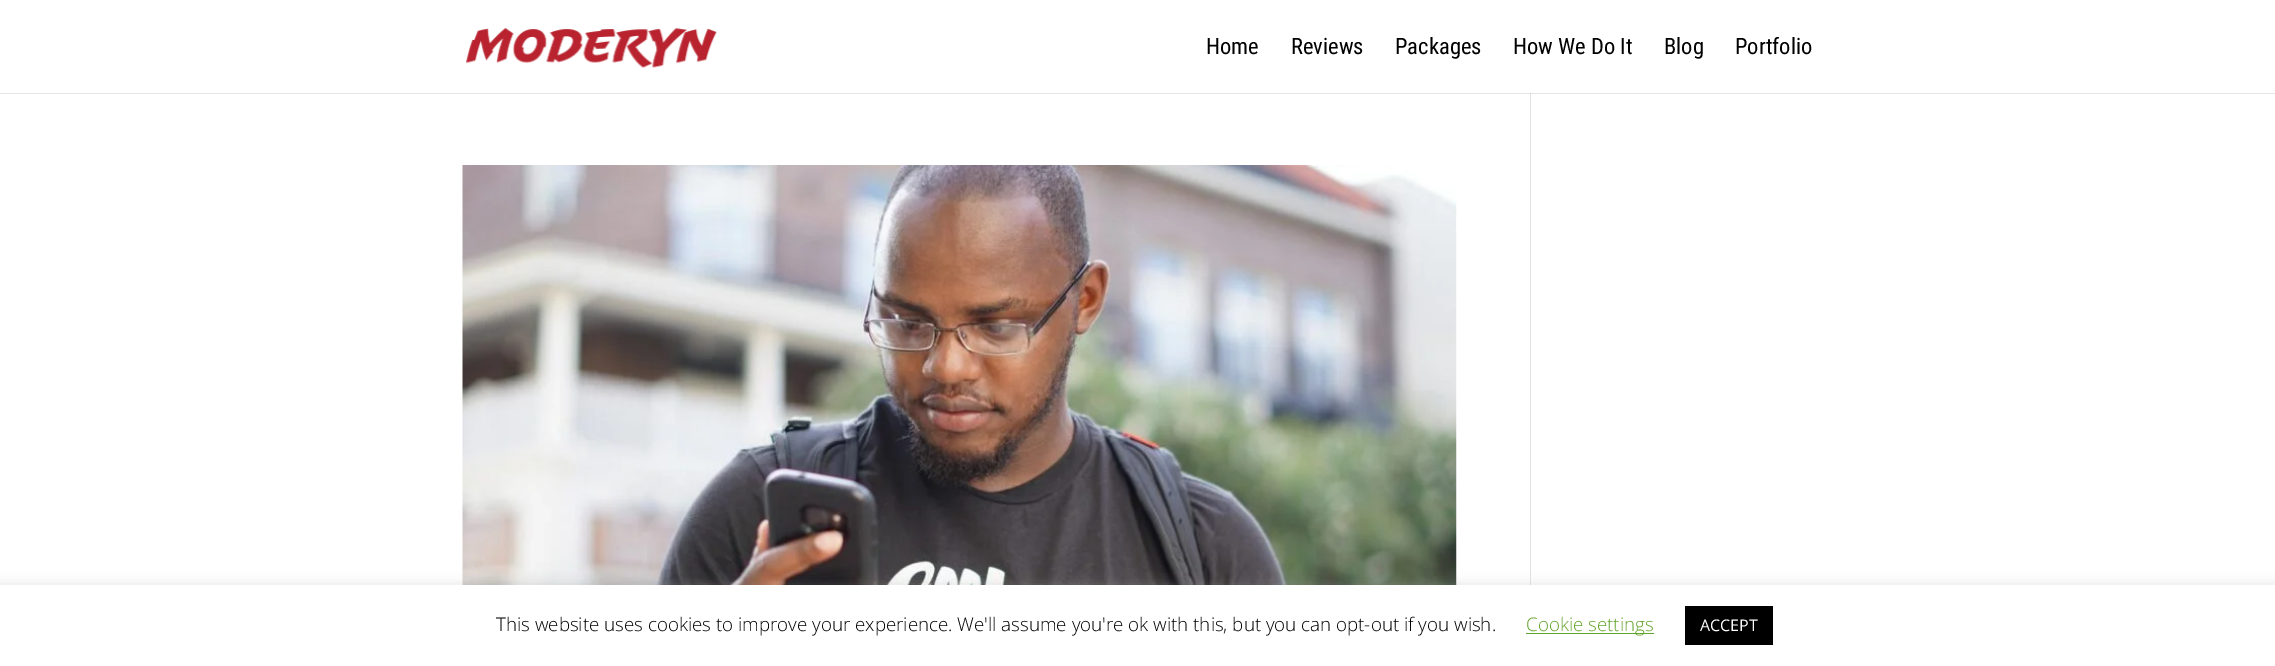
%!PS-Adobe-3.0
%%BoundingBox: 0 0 2275 666
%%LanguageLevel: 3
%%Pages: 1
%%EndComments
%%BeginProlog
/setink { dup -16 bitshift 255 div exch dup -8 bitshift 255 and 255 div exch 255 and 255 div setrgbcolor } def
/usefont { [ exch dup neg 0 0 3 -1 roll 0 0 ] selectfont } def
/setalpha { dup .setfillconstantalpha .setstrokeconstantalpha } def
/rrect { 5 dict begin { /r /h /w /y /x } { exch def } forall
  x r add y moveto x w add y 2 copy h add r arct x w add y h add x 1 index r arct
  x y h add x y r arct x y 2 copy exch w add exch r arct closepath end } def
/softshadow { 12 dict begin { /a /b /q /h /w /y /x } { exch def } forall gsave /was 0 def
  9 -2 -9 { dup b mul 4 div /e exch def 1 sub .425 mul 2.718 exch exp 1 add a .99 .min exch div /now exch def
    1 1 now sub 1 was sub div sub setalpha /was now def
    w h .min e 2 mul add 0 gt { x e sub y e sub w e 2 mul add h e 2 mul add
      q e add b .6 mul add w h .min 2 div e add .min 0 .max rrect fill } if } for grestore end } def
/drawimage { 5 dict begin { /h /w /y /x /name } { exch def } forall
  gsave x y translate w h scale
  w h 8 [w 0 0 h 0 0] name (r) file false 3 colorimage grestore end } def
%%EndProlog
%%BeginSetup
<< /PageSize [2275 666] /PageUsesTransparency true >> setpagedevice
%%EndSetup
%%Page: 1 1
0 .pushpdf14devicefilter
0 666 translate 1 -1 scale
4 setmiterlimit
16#FFFFFF setink
0 0 2275 666 rectfill
16#E6E6E6 setink
0 93 2275 1 rectfill
(img1.raw) 466 28 251 40 drawimage
/RobotoCondensed-Regular 22.5 usefont
16#000000 setink
[
    [(Home) 1206 54]
    [(Reviews) 1291 54]
    [(Packages) 1395 54]
    [(How We Do It) 1513 54]
    [(Blog) 1664 54]
    [(Portfolio) 1735 54]
] { aload pop moveto show } forall
(img2.raw) 462 165 995 420 drawimage
16#E2E2E2 setink
1530 93 1 492 rectfill
16#CBCBCB setink
1530 93 1 1 rectfill
16#ACABAB setink
0 584 2275 81 0 6 0.3 softshadow
16#FFFFFF setink
0 585 2275 81 rectfill
/OpenSans-Light 18.75 usefont
16#000000 setink
496 631 moveto (This website uses cookies to improve your experience. We'll assume you're ok with this, but you can opt-out if you wish.) show
16#62A329 setink
1526 633 128 1 rectfill
1526 631 moveto (Cookie settings) show
16#000000 setink
1685 606 88 39 rectfill
/OpenSans-Regular 16 usefont
16#FFFFFF setink
1700 631 moveto (ACCEPT) show
.poppdf14devicefilter showpage
%%EOF
